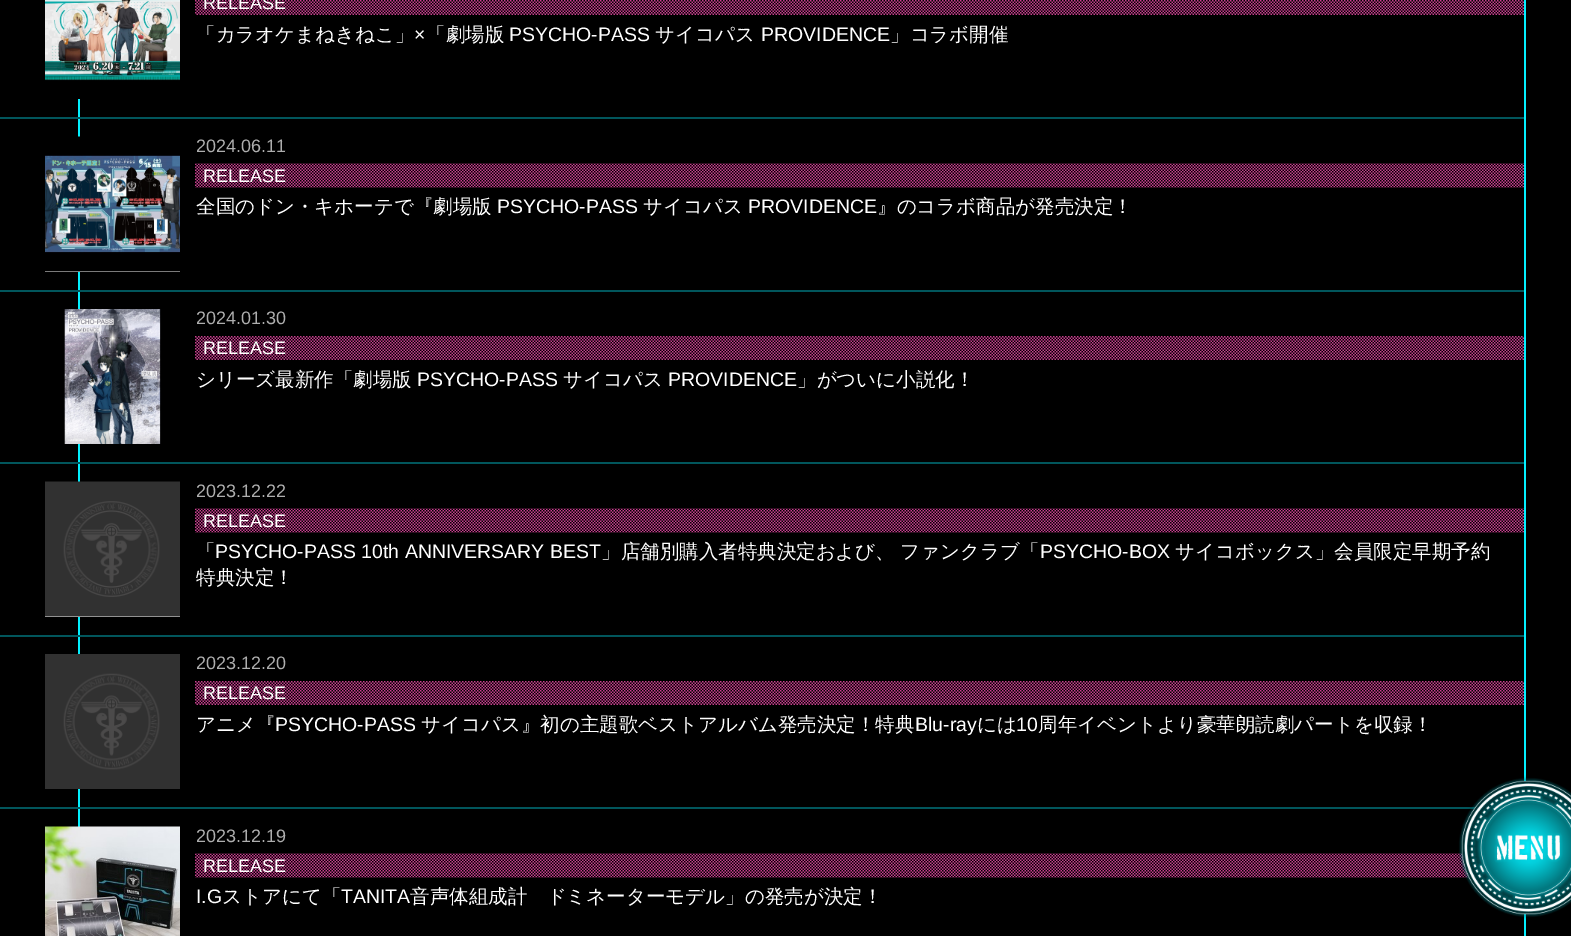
%!PS-Adobe-3.0
%%BoundingBox: 0 0 1571 936
%%LanguageLevel: 3
%%Pages: 1
%%EndComments
%%BeginProlog
/setink { dup -16 bitshift 255 div exch dup -8 bitshift 255 and 255 div exch 255 and 255 div setrgbcolor } def
/usefont { [ exch dup neg 0 0 3 -1 roll 0 0 ] selectfont } def
/drawimage { 5 dict begin { /h /w /y /x /name } { exch def } forall
  gsave x y translate w h scale
  w h 8 [w 0 0 h 0 0] name (r) file false 3 colorimage grestore end } def
%%EndProlog
%%BeginSetup
<< /PageSize [1571 936] >> setpagedevice
%%EndSetup
%%Page: 1 1
0 936 translate 1 -1 scale
4 setmiterlimit
16#000000 setink
0 0 1571 936 rectfill
[
    [78 99 2 728 16#03EFFE]
    [1524 0 2 936 16#03EFFE]
    [0 117 1524 2 16#01565C]
] { aload pop setink rectfill } forall
(img1.raw) 45 0 135 99 drawimage
(img2.raw) 195 0 1329 15 drawimage
/LiberationSans-Regular 18 usefont
16#FFFFFF setink
203 9 moveto (RELEASE) show
/WenQuanYiZenHei-Medium 19.5 usefont
196 41 moveto (「カラオケまねきねこ」) show
/LiberationSans-Regular 19.5 usefont
414 41 moveto (×) show
/WenQuanYiZenHei-Medium 19.5 usefont
426 41 moveto (「劇場版) show
/LiberationSans-Regular 19.5 usefont
509 41 moveto (PSYCHO-PASS) show
/WenQuanYiZenHei-Medium 19.5 usefont
655 41 moveto (サイコパス) show
/LiberationSans-Regular 19.5 usefont
761 41 moveto (PROVIDENCE) show
/WenQuanYiZenHei-Medium 19.5 usefont
890 41 moveto (」コラボ開催) show
16#01565C setink
0 290 1524 2 rectfill
16#F5F5F5 setink
45 271 135 1 rectfill
(img3.raw) 45 136 135 136 drawimage
/LiberationSans-Regular 18 usefont
16#AEAEAE setink
196 152 moveto (2024.06.11) show
(img4.raw) 195 163 1329 25 drawimage
16#FFFFFF setink
203 182 moveto (RELEASE) show
/WenQuanYiZenHei-Medium 19.5 usefont
196 213 moveto (全国のドン・キホーテで『劇場版) show
/LiberationSans-Regular 19.5 usefont
497 213 moveto (PSYCHO-PASS) show
/WenQuanYiZenHei-Medium 19.5 usefont
643 213 moveto (サイコパス) show
/LiberationSans-Regular 19.5 usefont
748 213 moveto (PROVIDENCE) show
/WenQuanYiZenHei-Medium 19.5 usefont
877 213 moveto (』のコラボ商品が発売決定！) show
16#01565C setink
0 462 1524 2 rectfill
(img5.raw) 45 309 135 135 drawimage
/LiberationSans-Regular 18 usefont
16#AEAEAE setink
196 324 moveto (2024.01.30) show
(img6.raw) 195 336 1329 24 drawimage
16#FFFFFF setink
203 354 moveto (RELEASE) show
/WenQuanYiZenHei-Medium 19.5 usefont
196 386 moveto (シリーズ最新作「劇場版) show
/LiberationSans-Regular 19.5 usefont
417 386 moveto (PSYCHO-PASS) show
/WenQuanYiZenHei-Medium 19.5 usefont
563 386 moveto (サイコパス) show
/LiberationSans-Regular 19.5 usefont
668 386 moveto (PROVIDENCE) show
/WenQuanYiZenHei-Medium 19.5 usefont
797 386 moveto (」がついに小説化！) show
16#01565C setink
0 635 1524 2 rectfill
16#F5F5F5 setink
45 616 135 1 rectfill
(img7.raw) 45 481 135 136 drawimage
/LiberationSans-Regular 18 usefont
16#AEAEAE setink
196 497 moveto (2023.12.22) show
(img4.raw) 195 508 1329 25 drawimage
16#FFFFFF setink
203 527 moveto (RELEASE) show
/WenQuanYiZenHei-Medium 19.5 usefont
196 558 moveto (「) show
/LiberationSans-Regular 19.5 usefont
215 558 moveto (PSYCHO-PASS 10th ANNIVERSARY BEST) show
/WenQuanYiZenHei-Medium 19.5 usefont
601 558 moveto (」店舗別購入者特典決定および、) show
900 558 moveto (ファンクラブ「) show
/LiberationSans-Regular 19.5 usefont
1040 558 moveto (PSYCHO-BOX) show
/WenQuanYiZenHei-Medium 19.5 usefont
1175 558 moveto (サイコボックス」会員限定早期予約) show
196 584 moveto (特典決定！) show
16#01565C setink
0 807 1476 2 rectfill
(img8.raw) 45 654 135 135 drawimage
/LiberationSans-Regular 18 usefont
16#AEAEAE setink
196 669 moveto (2023.12.20) show
(img6.raw) 195 681 1329 24 drawimage
16#FFFFFF setink
203 699 moveto (RELEASE) show
/WenQuanYiZenHei-Medium 19.5 usefont
196 731 moveto (アニメ『) show
/LiberationSans-Regular 19.5 usefont
275 731 moveto (PSYCHO-PASS) show
/WenQuanYiZenHei-Medium 19.5 usefont
421 731 moveto (サイコパス』初の主題歌ベストアルバム発売決定！特典) show
/LiberationSans-Regular 19.5 usefont
915 731 moveto (Blu-ray) show
/WenQuanYiZenHei-Medium 19.5 usefont
977 731 moveto (には) show
/LiberationSans-Regular 19.5 usefont
1016 731 moveto (10) show
/WenQuanYiZenHei-Medium 19.5 usefont
1038 731 moveto (周年イベントより豪華朗読劇パートを収録！) show
(img9.raw) 45 826 135 110 drawimage
/LiberationSans-Regular 18 usefont
16#AEAEAE setink
196 842 moveto (2023.12.19) show
(img10.raw) 195 853 1275 25 drawimage
16#FFFFFF setink
203 872 moveto (RELEASE) show
/LiberationSans-Regular 19.5 usefont
196 903 moveto (I.G) show
/WenQuanYiZenHei-Medium 19.5 usefont
222 903 moveto (ストアにて「) show
/LiberationSans-Regular 19.5 usefont
341 903 moveto (TANITA) show
/WenQuanYiZenHei-Medium 19.5 usefont
410 903 moveto (音声体組成計　ドミネーターモデル」の発売が決定！) show
(img11.raw) 1457 775 114 145 drawimage
showpage
%%EOF
